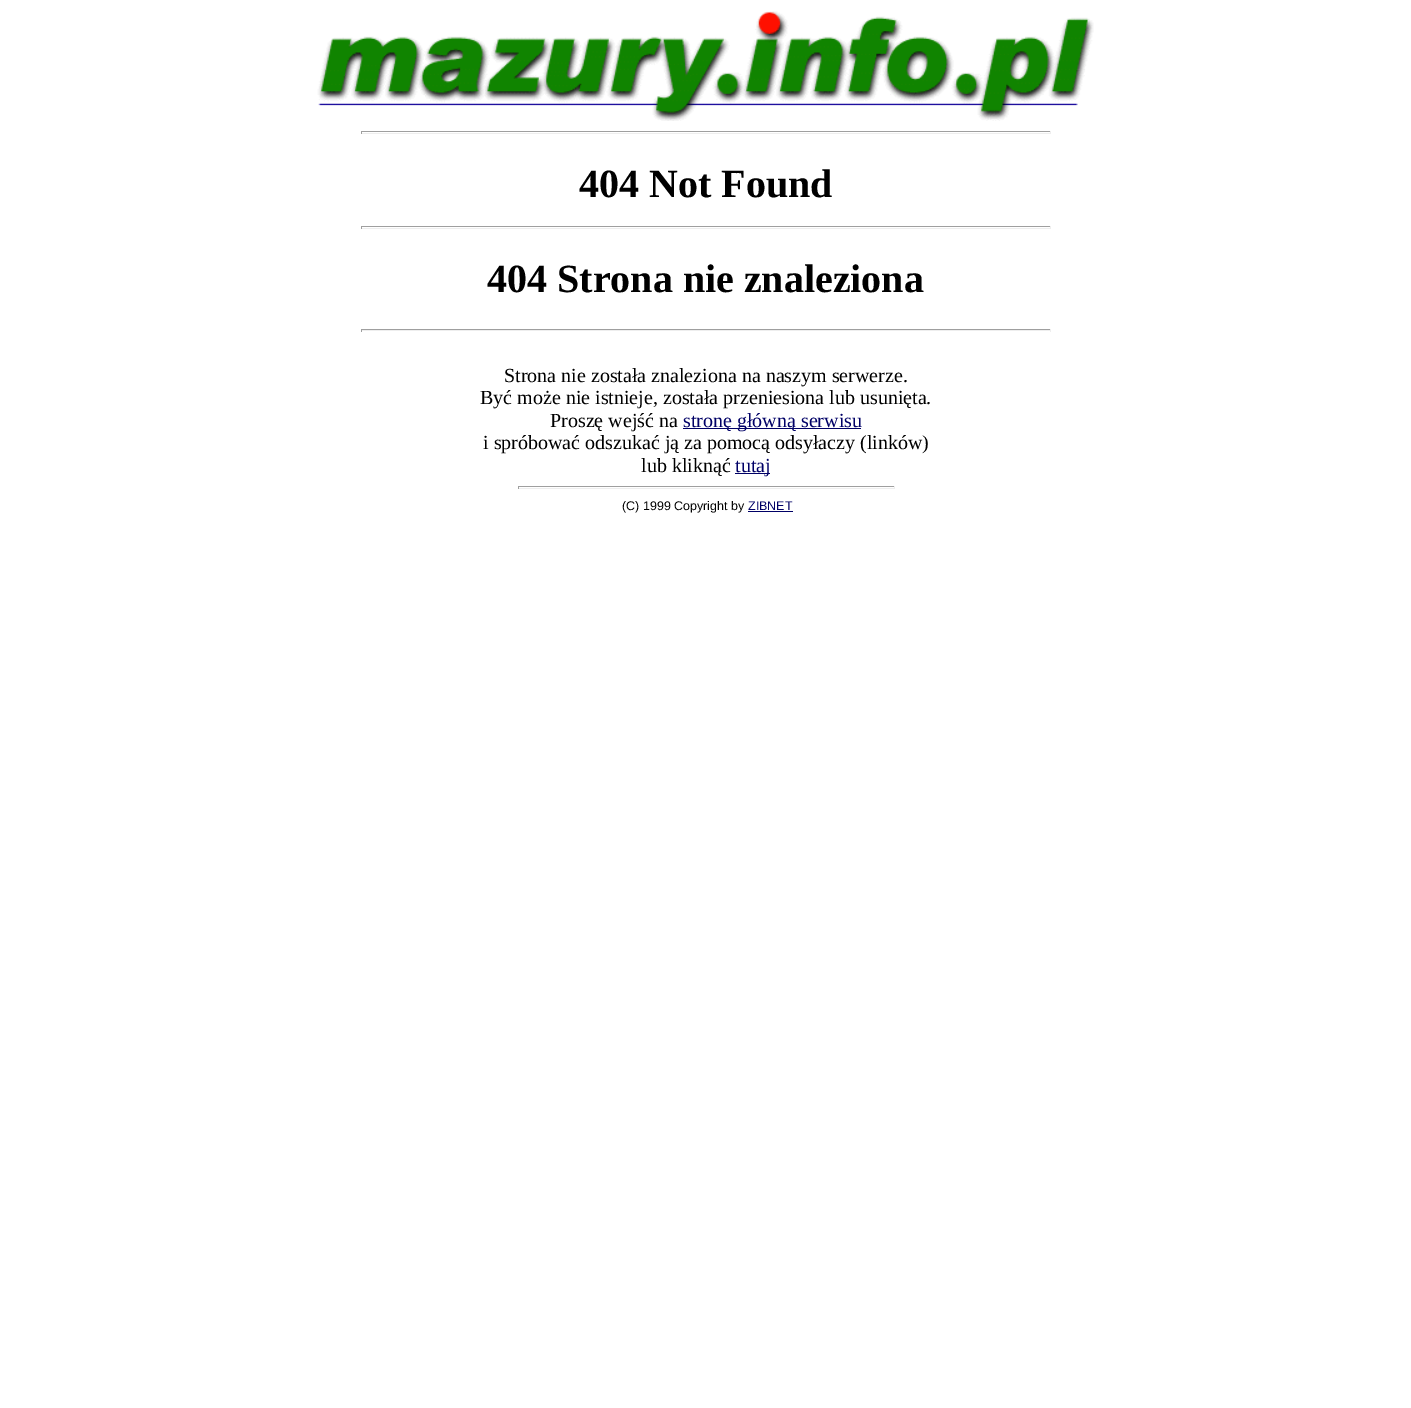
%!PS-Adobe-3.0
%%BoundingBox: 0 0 1411 1408
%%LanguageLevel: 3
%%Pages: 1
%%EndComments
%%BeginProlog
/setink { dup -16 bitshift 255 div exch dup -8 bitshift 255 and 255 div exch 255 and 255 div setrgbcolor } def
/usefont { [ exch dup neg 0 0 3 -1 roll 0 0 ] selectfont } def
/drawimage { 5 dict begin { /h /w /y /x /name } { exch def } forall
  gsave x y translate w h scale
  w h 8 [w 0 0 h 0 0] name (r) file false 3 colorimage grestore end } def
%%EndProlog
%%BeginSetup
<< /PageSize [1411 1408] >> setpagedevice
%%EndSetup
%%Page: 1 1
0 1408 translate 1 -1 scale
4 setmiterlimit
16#FFFFFF setink
0 0 1411 1408 rectfill
(img1.raw) 317 11 777 110 drawimage
[
    [361 131 690 1 16#9F9F9F]
    [1050 131 1 3 16#EEEEEE]
    [361 133 690 1 16#EEEEEE]
    [361 131 1 3 16#9F9F9F]
] { aload pop setink rectfill } forall
/LiberationSerif-Bold 40 usefont
16#000000 setink
579 197 moveto (404 Not Found) show
[
    [361 226 690 1 16#9F9F9F]
    [1050 226 1 3 16#EEEEEE]
    [361 228 690 1 16#EEEEEE]
    [361 226 1 3 16#9F9F9F]
] { aload pop setink rectfill } forall
16#000000 setink
487 292 moveto (404 Strona nie znaleziona) show
[
    [361 329 690 1 16#9F9F9F]
    [1050 329 1 3 16#EEEEEE]
    [361 330 690 1 16#EEEEEE]
    [361 329 1 3 16#9F9F9F]
] { aload pop setink rectfill } forall
/LiberationSerif-Regular 20 usefont
16#000000 setink
[
    [(Strona nie została znaleziona na naszym serwerze.) 504 382]
    [(Być może nie istnieje, została przeniesiona lub usunięta.) 480 404]
    [(Proszę wejść na) 550 427]
] { aload pop moveto show } forall
16#000066 setink
683 428 178 1 rectfill
683 427 moveto (stronę główną serwisu) show
16#000000 setink
483 449 moveto (i spróbować odszukać ją za pomocą odsyłaczy \(linków\)) show
641 472 moveto (lub kliknąć) show
16#000066 setink
735 473 35 1 rectfill
735 472 moveto (tutaj) show
[
    [518 486 377 1 16#9F9F9F]
    [894 486 1 3 16#EEEEEE]
    [518 488 377 1 16#EEEEEE]
    [518 486 1 3 16#9F9F9F]
] { aload pop setink rectfill } forall
/LiberationSans-Regular 12.5 usefont
16#000000 setink
622 510 moveto (\(C\) 1999 Copyright by) show
16#000066 setink
748 510 moveto (ZIBNET) show
748 511 45 1 rectfill
showpage
%%EOF
